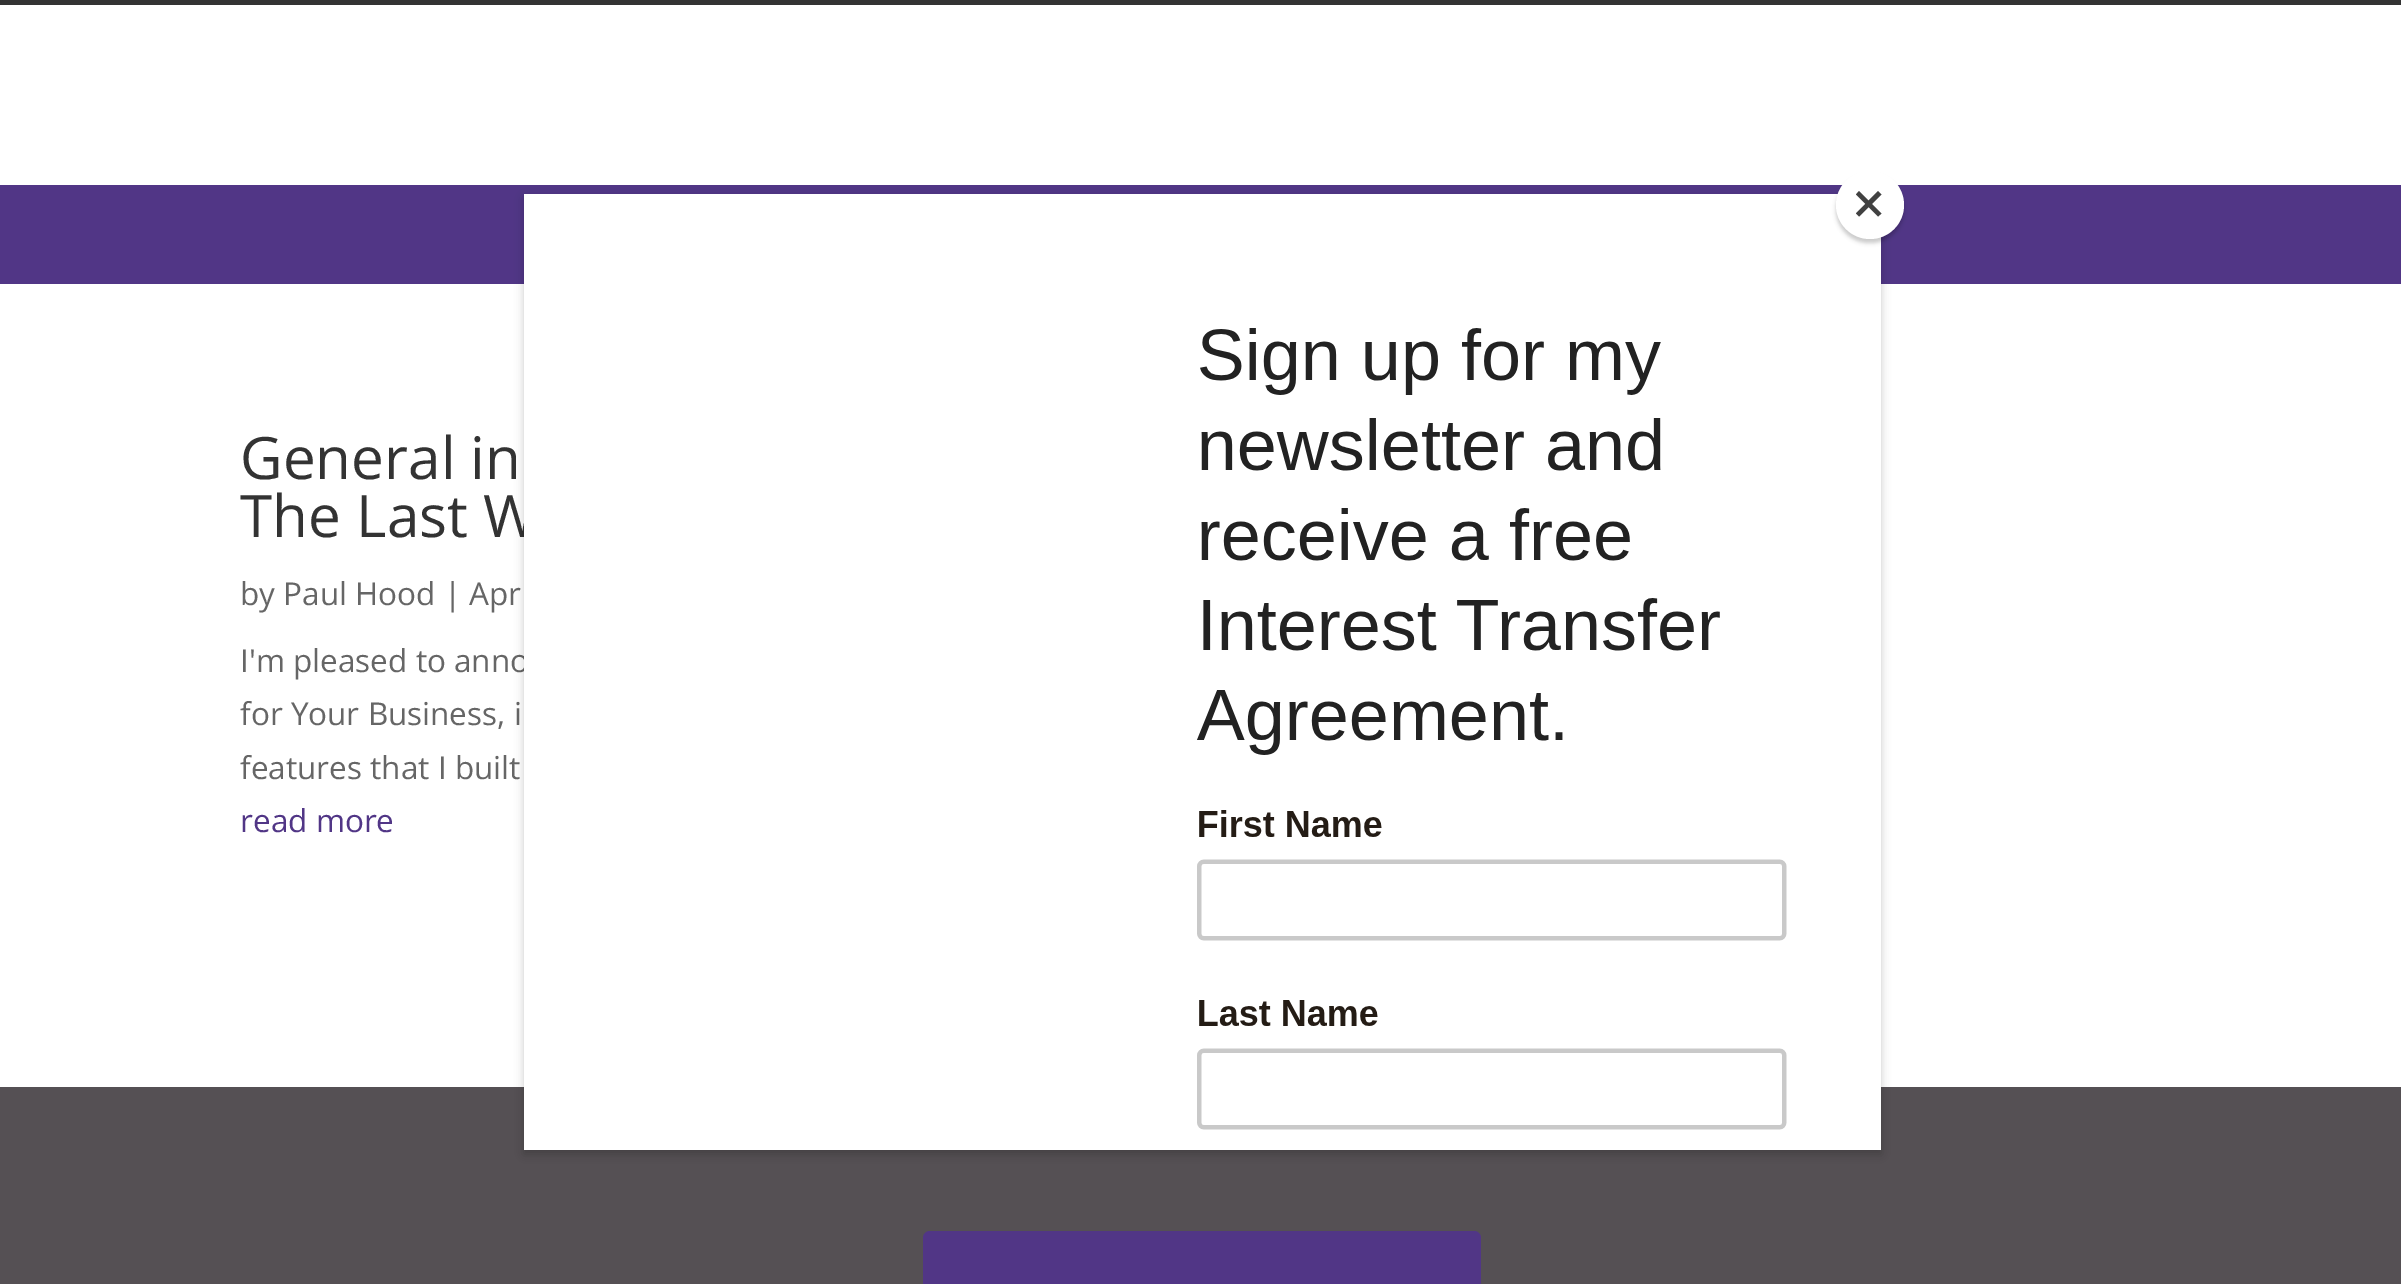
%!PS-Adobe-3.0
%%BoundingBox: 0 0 2401 1284
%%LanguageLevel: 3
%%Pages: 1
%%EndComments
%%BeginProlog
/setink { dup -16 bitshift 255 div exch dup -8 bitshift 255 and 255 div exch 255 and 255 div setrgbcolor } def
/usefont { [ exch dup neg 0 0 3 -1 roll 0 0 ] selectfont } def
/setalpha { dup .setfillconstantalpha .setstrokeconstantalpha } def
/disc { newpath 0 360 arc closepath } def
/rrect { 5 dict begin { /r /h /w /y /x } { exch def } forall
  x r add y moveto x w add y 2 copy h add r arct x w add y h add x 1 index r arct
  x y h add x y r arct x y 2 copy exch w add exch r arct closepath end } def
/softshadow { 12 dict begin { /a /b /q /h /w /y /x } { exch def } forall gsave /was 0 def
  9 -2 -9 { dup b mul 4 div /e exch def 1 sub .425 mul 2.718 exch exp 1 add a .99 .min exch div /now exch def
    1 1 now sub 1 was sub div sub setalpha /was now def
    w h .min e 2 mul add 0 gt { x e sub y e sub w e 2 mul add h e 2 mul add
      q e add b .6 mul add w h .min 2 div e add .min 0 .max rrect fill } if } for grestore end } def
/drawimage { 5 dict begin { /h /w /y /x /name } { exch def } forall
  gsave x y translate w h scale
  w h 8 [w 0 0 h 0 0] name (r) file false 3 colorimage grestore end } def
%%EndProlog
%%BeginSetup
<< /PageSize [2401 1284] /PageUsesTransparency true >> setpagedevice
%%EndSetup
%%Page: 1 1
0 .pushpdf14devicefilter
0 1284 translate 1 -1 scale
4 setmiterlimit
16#FFFFFF setink
0 0 2401 1284 rectfill
16#333333 setink
0 0 2401 5 rectfill
16#513686 setink
0 185 2401 99 rectfill
/OpenSans-Regular 58.5 usefont
16#333333 setink
240 479 moveto (General in) show
240 537 moveto (The Last W) show
/OpenSans-Regular 31.5 usefont
16#666666 setink
[
    [(by Paul Hood | Apr) 240 605]
    [(I'm pleased to anno) 240 672]
    [(for Your Business, i) 240 725]
    [(features that I built) 240 779]
] { aload pop moveto show } forall
16#513686 setink
240 832 moveto (read more) show
16#555054 setink
0 1087 2401 197 rectfill
16#513686 setink
923 1231 558 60 7 rrect fill
16#000000 setink
524 198 1357 956 0 4.5 0.2 softshadow
(img1.raw) 524 194 1357 956 drawimage
1836 176 68 67 33.5 2 0.2 softshadow
16#FFFFFF setink
1870 205 34 disc fill
16#414141 setink
1878 191 moveto 1881.5 194.5 lineto 1859 216.5 lineto 1856 213.5 lineto closepath fill
1856 194.5 moveto 1859 191 lineto 1881.5 213.5 lineto 1878 216.5 lineto closepath fill
.poppdf14devicefilter showpage
%%EOF
